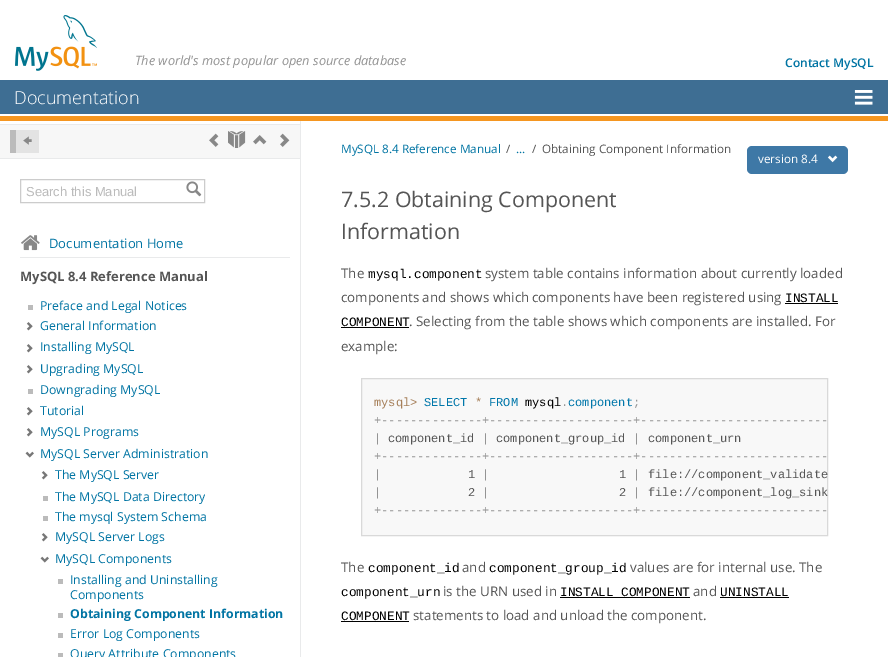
%!PS-Adobe-3.0
%%BoundingBox: 0 0 888 657
%%LanguageLevel: 3
%%Pages: 1
%%EndComments
%%BeginProlog
/setink { dup -16 bitshift 255 div exch dup -8 bitshift 255 and 255 div exch 255 and 255 div setrgbcolor } def
/usefont { [ exch dup neg 0 0 3 -1 roll 0 0 ] selectfont } def
/rrect { 5 dict begin { /r /h /w /y /x } { exch def } forall
  x r add y moveto x w add y 2 copy h add r arct x w add y h add x 1 index r arct
  x y h add x y r arct x y 2 copy exch w add exch r arct closepath end } def
/drawimage { 5 dict begin { /h /w /y /x /name } { exch def } forall
  gsave x y translate w h scale
  w h 8 [w 0 0 h 0 0] name (r) file false 3 colorimage grestore end } def
%%EndProlog
%%BeginSetup
<< /PageSize [888 657] >> setpagedevice
%%EndSetup
%%Page: 1 1
0 657 translate 1 -1 scale
4 setmiterlimit
16#FFFFFF setink
0 0 888 657 rectfill
(img1.raw) 15 15 82 56 drawimage
/OpenSans-Italic 12.8 usefont
16#949494 setink
135 65 moveto (The world's most popular open source database) show
/OpenSans-SemiBold 12 usefont
16#0074A3 setink
785 67 moveto (Contact MySQL) show
16#3E6E93 setink
0 80 888 34 rectfill
/OpenSans-Light 18 usefont
16#FFFFFF setink
14 104 moveto (Documentation) show
(img2.raw) 854 90 19 15 drawimage
[
    [0 116 888 5 16#F59620]
    [300 121 1 536 16#E9EAEB]
    [0 125 300 33 16#F7F7F7]
    [0 124 300 1 16#E9EAEB]
    [0 158 300 1 16#E9EAEB]
    [16 130 23 23 16#E3E3E3]
    [10 130 6 23 16#BBBBBB]
] { aload pop setink rectfill } forall
(img3.raw) 23 136 9 9 drawimage
(img4.raw) 209 133 10 14 drawimage
(img5.raw) 228 131 18 17 drawimage
(img6.raw) 253 135 14 10 drawimage
(img7.raw) 280 133 10 14 drawimage
16#CCCCCC setink
20.5 179.5 184 23 rectstroke
/LiberationSans-Regular 13 usefont
16#BBBBBB setink
26 196 moveto (Search this Manual) show
(img8.raw) 186 181 16 16 drawimage
(img9.raw) 21 235 19 16 drawimage
/OpenSans-Regular 13 usefont
16#0074A3 setink
49 248 moveto (Documentation Home) show
16#E9EAEB setink
20 257 270 1 rectfill
/OpenSans-Bold 13 usefont
16#555555 setink
20 281 moveto (MySQL 8.4 Reference Manual) show
16#BBBBBB setink
28 305 5 5 rectfill
/OpenSans-Regular 12.3 usefont
16#0074A3 setink
40 310 moveto (Preface and Legal Notices) show
(img10.raw) 26 322 7 9 drawimage
40 330 moveto (General Information) show
(img10.raw) 26 344 7 9 drawimage
40 351 moveto (Installing MySQL) show
(img10.raw) 26 365 7 9 drawimage
40 373 moveto (Upgrading MySQL) show
16#BBBBBB setink
28 389 5 5 rectfill
16#0074A3 setink
40 394 moveto (Downgrading MySQL) show
(img10.raw) 26 407 7 9 drawimage
40 415 moveto (Tutorial) show
(img10.raw) 26 428 7 9 drawimage
40 436 moveto (MySQL Programs) show
(img11.raw) 25 451 9 7 drawimage
40 458 moveto (MySQL Server Administration) show
(img10.raw) 41 471 7 9 drawimage
55 479 moveto (The MySQL Server) show
16#BBBBBB setink
43 496 5 5 rectfill
16#0074A3 setink
55 501 moveto (The MySQL Data Directory) show
16#BBBBBB setink
43 516 5 5 rectfill
16#0074A3 setink
55 521 moveto (The mysql System Schema) show
(img10.raw) 41 533 7 9 drawimage
55 541 moveto (MySQL Server Logs) show
(img11.raw) 40 556 9 7 drawimage
55 563 moveto (MySQL Components) show
16#BBBBBB setink
58 579 5 5 rectfill
16#0074A3 setink
70 584 moveto (Installing and Uninstalling) show
70 599 moveto (Components) show
16#BBBBBB setink
58 613 5 5 rectfill
/OpenSans-Bold 12.3 usefont
16#0074A3 setink
70 618 moveto (Obtaining Component Information) show
16#BBBBBB setink
58 633 5 5 rectfill
/OpenSans-Regular 12.3 usefont
16#0074A3 setink
70 638 moveto (Error Log Components) show
16#BBBBBB setink
58 653 5 4 rectfill
16#0074A3 setink
70 658 moveto (Query Attribute Components) show
/OpenSans-Regular 11.7 usefont
341 153 moveto (MySQL 8.4 Reference Manual) show
16#555555 setink
506 153 moveto (/) show
16#0074A3 setink
516 153 moveto (...) show
16#555555 setink
532 153 moveto (/) show
542 153 moveto (Obtaining Component Information) show
16#3E78A6 setink
747 146 101 28 5 rrect fill
16#FFFFFF setink
758 163 moveto (version 8.4) show
(img12.raw) 827 155 11 8 drawimage
/OpenSans-Regular 21.4 usefont
16#555555 setink
341 207 moveto (7.5.2 Obtaining Component) show
341 239 moveto (Information) show
/OpenSans-Regular 13.35 usefont
341 278 moveto (The) show
/LiberationMono-Regular 12.75 usefont
16#000000 setink
368 278 moveto (mysql.component) show
/OpenSans-Regular 13.35 usefont
16#555555 setink
[
    [(system table contains information about currently loaded) 485 278]
    [(components and shows which) 341 302]
    [(components have been registered using) 532 302]
] { aload pop moveto show } forall
/LiberationMono-Regular 12.75 usefont
16#000000 setink
785 302 moveto (INSTALL) show
785 303 53 1 rectfill
341 326 moveto (COMPONENT) show
341 327 68 1 rectfill
/OpenSans-Regular 13.35 usefont
16#555555 setink
409 326 moveto (. Selecting from the table shows which components are installed. For) show
341 351 moveto (example:) show
16#F8F8F8 setink
361.5 378.5 moveto 827.5 378.5 lineto 827.5 535.5 lineto 361.5 535.5 lineto closepath gsave fill grestore
16#D9D9D9 setink
stroke
/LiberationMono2-Regular 12 usefont
16#A67F59 setink
374 406 moveto (mysql>) show
16#0077AA setink
424 406 moveto (SELECT) show
16#A67F59 setink
475 406 moveto (*) show
16#0077AA setink
489 406 moveto (FROM) show
16#000000 setink
525 406 moveto (mysql) show
16#949494 setink
561 406 moveto (.) show
16#0077AA setink
568 406 moveto (component) show
16#949494 setink
[
    [(;) 633 406]
    [(+--------------+--------------------+----------) 374 424]
    [(----------------) 713 424]
    [(|) 374 442]
] { aload pop moveto show } forall
16#555555 setink
388 442 moveto (component_id) show
16#949494 setink
482 442 moveto (|) show
16#555555 setink
496 442 moveto (component_group_id) show
16#949494 setink
633 442 moveto (|) show
16#555555 setink
648 442 moveto (component_urn) show
16#949494 setink
[
    [(+--------------+--------------------+----------) 374 460]
    [(----------------) 713 460]
    [(|) 374 478]
] { aload pop moveto show } forall
16#555555 setink
468 478 moveto (1) show
16#949494 setink
482 478 moveto (|) show
16#555555 setink
619 478 moveto (1) show
16#949494 setink
633 478 moveto (|) show
16#555555 setink
648 478 moveto (file://component_validate) show
16#949494 setink
374 496 moveto (|) show
16#555555 setink
468 496 moveto (2) show
16#949494 setink
482 496 moveto (|) show
16#555555 setink
619 496 moveto (2) show
16#949494 setink
633 496 moveto (|) show
16#555555 setink
648 496 moveto (file://component_log_sink) show
16#949494 setink
374 514 moveto (+--------------+--------------------+----------) show
713 514 moveto (----------------) show
/OpenSans-Regular 13.35 usefont
16#555555 setink
341 572 moveto (The) show
/LiberationMono-Regular 12.75 usefont
16#000000 setink
368 572 moveto (component_id) show
/OpenSans-Regular 13.35 usefont
16#555555 setink
462 572 moveto (and) show
/LiberationMono-Regular 12.75 usefont
16#000000 setink
489 572 moveto (component_group_id) show
/OpenSans-Regular 13.35 usefont
16#555555 setink
630 572 moveto (values are for internal use. The) show
/LiberationMono-Regular 12.75 usefont
16#000000 setink
341 596 moveto (component_urn) show
/OpenSans-Regular 13.35 usefont
16#555555 setink
443 596 moveto (is the URN used in) show
/LiberationMono-Regular 12.75 usefont
16#000000 setink
560 596 moveto (INSTALL COMPONENT) show
560 597 130 1 rectfill
/OpenSans-Regular 13.35 usefont
16#555555 setink
693 596 moveto (and) show
/LiberationMono-Regular 12.75 usefont
16#000000 setink
720 596 moveto (UNINSTALL) show
720 597 69 1 rectfill
341 620 moveto (COMPONENT) show
341 621 68 1 rectfill
/OpenSans-Regular 13.35 usefont
16#555555 setink
413 620 moveto (statements to load and unload the component.) show
showpage
%%EOF
